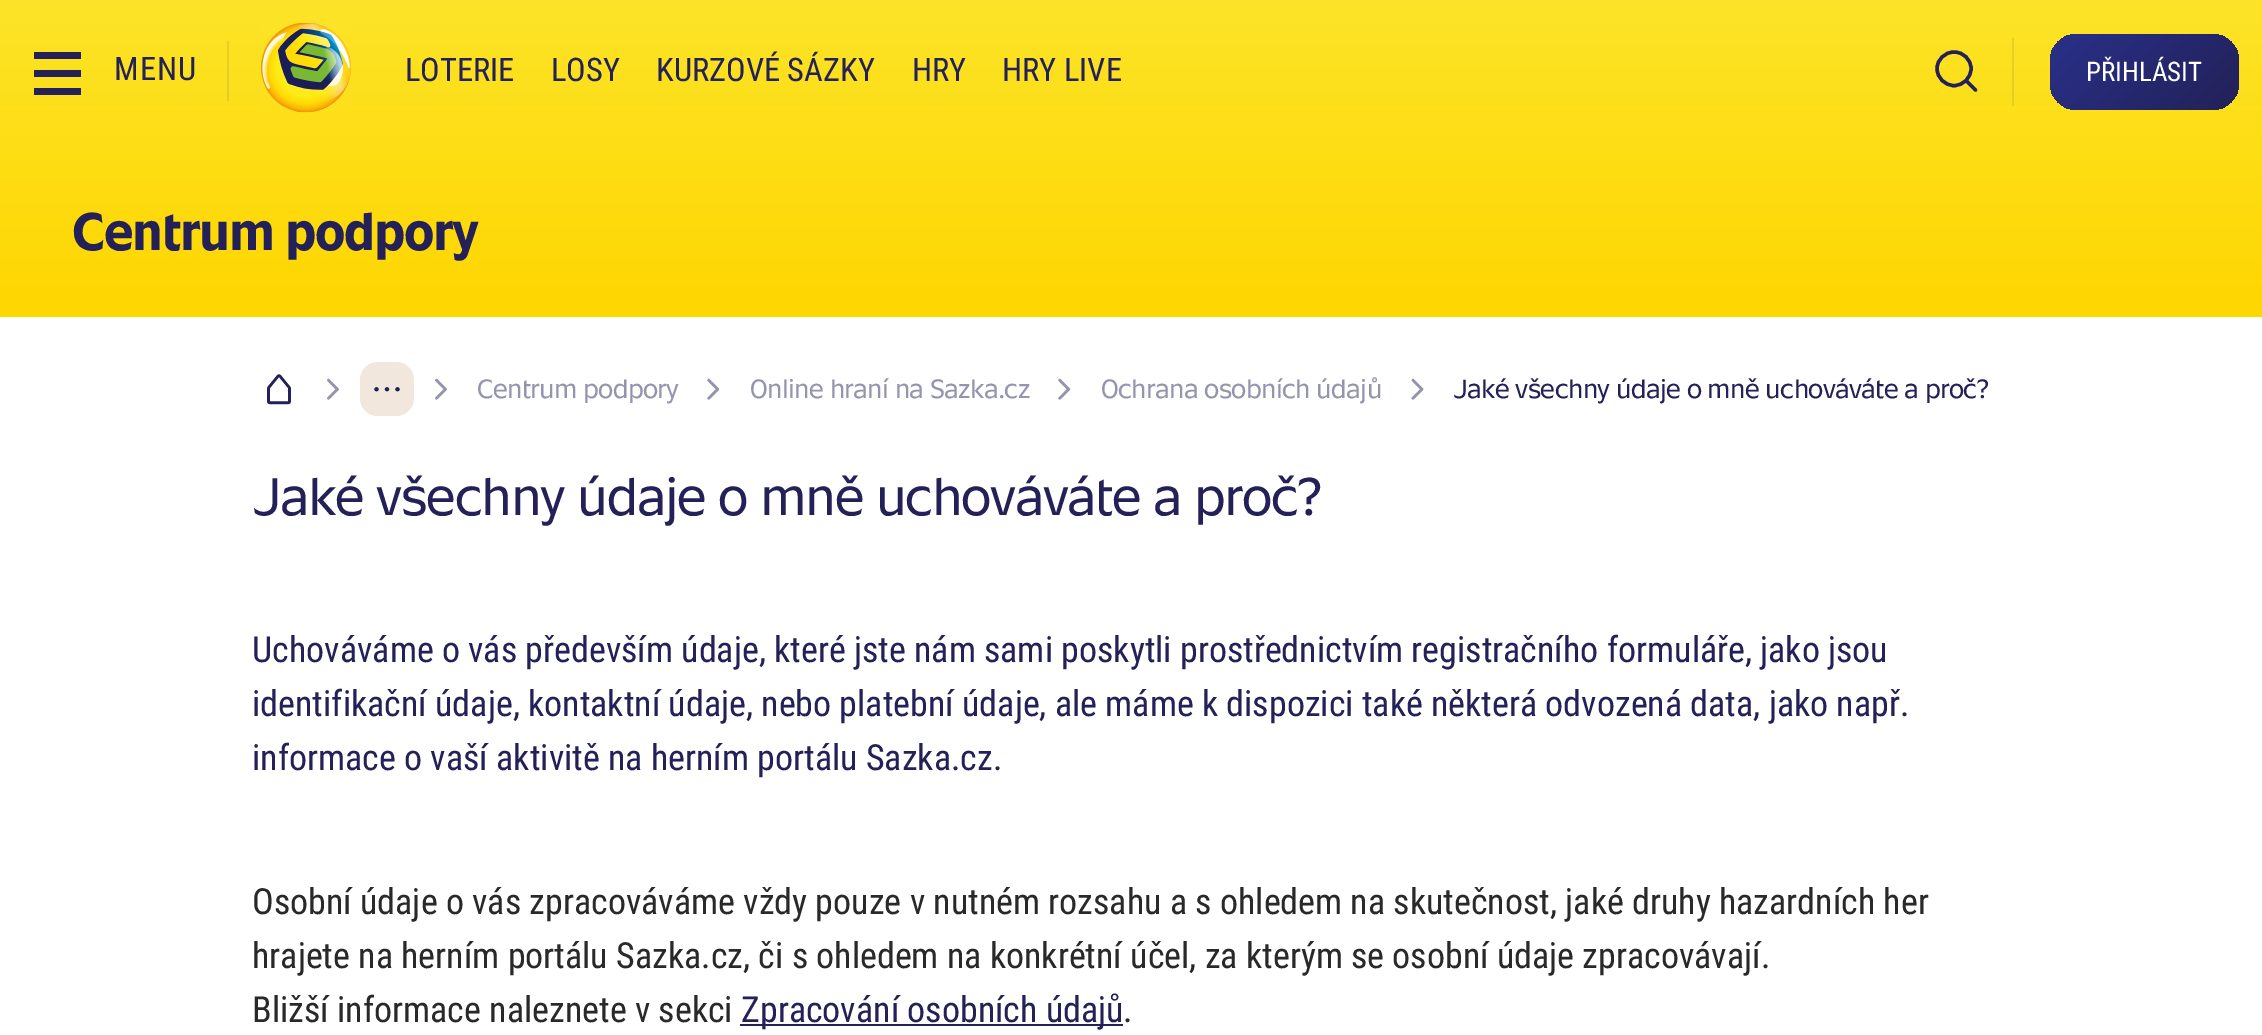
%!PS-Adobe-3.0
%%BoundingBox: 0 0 2262 1035
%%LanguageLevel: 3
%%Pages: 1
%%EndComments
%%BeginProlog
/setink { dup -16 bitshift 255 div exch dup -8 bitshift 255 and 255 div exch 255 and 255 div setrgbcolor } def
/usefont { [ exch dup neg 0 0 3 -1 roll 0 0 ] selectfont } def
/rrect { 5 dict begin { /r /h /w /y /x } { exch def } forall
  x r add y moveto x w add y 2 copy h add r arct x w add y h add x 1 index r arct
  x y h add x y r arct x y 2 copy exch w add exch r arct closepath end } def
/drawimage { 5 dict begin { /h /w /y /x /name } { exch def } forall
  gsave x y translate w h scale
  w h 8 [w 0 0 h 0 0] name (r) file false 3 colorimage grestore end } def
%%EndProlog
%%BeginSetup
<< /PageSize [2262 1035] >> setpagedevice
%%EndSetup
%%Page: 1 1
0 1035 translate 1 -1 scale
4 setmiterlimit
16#FFFFFF setink
0 0 2262 1035 rectfill
gsave 0 0 moveto 2262 0 lineto 2262 317 lineto 0 317 lineto closepath clip newpath
<< /ShadingType 2 /ColorSpace /DeviceRGB /Coords [1132 0 1132 317] /Extend [true true] /Function << /FunctionType 2 /Domain [0 1] /C0 [0.988 0.894 0.157] /C1 [1 0.839 0] /N 1 >> >> shfill grestore
[
    [34 52 47 7 16#232157]
    [34 70 47 7 16#232157]
    [34 88 47 7 16#232157]
] { aload pop setink rectfill } forall
/RobotoCondensed-Regular 32.5 usefont
114 80 moveto 1 0 (MENU) ashow
(img1.raw) 261 23 90 90 drawimage
[
    [(LOTERIE) 405 81]
    [(LOSY) 551 81]
    [(KURZOVÉ SÁZKY) 656 81]
    [(HRY) 912 81]
    [(HRY LIVE) 1002 81]
] { aload pop moveto show } forall
3.4 setlinewidth
1 setlinejoin
1971 68.5 moveto 1971 78 1963.5 85.5 1954 85.5 curveto 1945 85.5 1937 78 1937 68.5 curveto 1937 59.5 1945 52 1954 52 curveto 1963.5 52 1971 59.5 1971 68.5 curveto closepath stroke
1 setlinecap
1966.5 81 moveto 1975.5 90 lineto stroke
gsave 2050 34 189 76 27 rrect clip newpath
<< /ShadingType 2 /ColorSpace /DeviceRGB /Coords [2078 5.6 2211 138] /Extend [true true] /Function << /FunctionType 2 /Domain [0 1] /C0 [0.161 0.188 0.537] /C1 [0.137 0.129 0.341] /N 1 >> >> shfill grestore
/RobotoCondensed-Regular 27 usefont
16#FFFFFF setink
2086 81 moveto (PŘIHLÁSIT) show
gsave 2012 38 moveto 2014 38 lineto 2014 106 lineto 2012 106 lineto closepath clip newpath
<< /ShadingType 2 /ColorSpace /DeviceRGB /Coords [1132 0 1132 317] /Extend [true true] /Function << /FunctionType 2 /Domain [0 1] /C0 [0.902 0.82 0.176] /C1 [0.914 0.769 0.035] /N 1 >> >> shfill grestore
gsave 227 41 moveto 229 41 lineto 229 101 lineto 227 101 lineto closepath clip newpath
<< /ShadingType 2 /ColorSpace /DeviceRGB /Coords [1132 0 1132 317] /Extend [true true] /Function << /FunctionType 2 /Domain [0 1] /C0 [0.902 0.82 0.176] /C1 [0.914 0.769 0.035] /N 1 >> >> shfill grestore
/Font-Bold 54 usefont
16#232157 setink
72 250 moveto -1.35 0 (Centrum podpory) ashow
(img2.raw) 267 374 24 31 drawimage
(img3.raw) 327 378 12 22 drawimage
16#F1E7DD setink
360 362 54 54 18 rrect fill
(img4.raw) 374 387 26 5 drawimage
(img3.raw) 435 378 12 22 drawimage
/Font-Regular 27 usefont
16#9594AE setink
477 398 moveto -0.65 0 (Centrum podpory) ashow
(img5.raw) 707 378 13 22 drawimage
750 398 moveto -0.65 0 (Online hraní na Sazka.cz) ashow
(img5.raw) 1058 378 13 22 drawimage
1101 398 moveto -0.65 0 (Ochrana osobních údajů) ashow
(img6.raw) 1411 378 13 22 drawimage
16#232157 setink
1453 398 moveto -0.65 0 (Jaké všechny údaje o mně uchováváte a proč?) ashow
/Font-Regular 54 usefont
252 515 moveto -1.35 0 (Jaké všechny údaje o mně uchováváte a proč?) ashow
/RobotoCondensed-Regular 36 usefont
[
    [(Uchováváme o vás především údaje, které jste nám sami poskytli prostřednictvím registračního formuláře, jako jsou) 252 662]
    [(identifikační údaje, kontaktní údaje, nebo platební údaje, ale máme k dispozici také některá odvozená data, jako např.) 252 716]
    [(informace o vaší aktivitě na herním portálu Sazka.cz.) 252 770]
] { aload pop moveto show } forall
16#292929 setink
[
    [(Osobní údaje o vás zpracováváme vždy pouze v nutném rozsahu a s ohledem na skutečnost, jaké druhy hazardních her) 252 914]
    [(hrajete na herním portálu Sazka.cz, či s ohledem na konkrétní účel, za kterým se osobní údaje zpracovávají.) 252 968]
    [(Bližší informace naleznete v sekci) 252 1022]
] { aload pop moveto show } forall
16#232157 setink
740 1024 383 2 rectfill
741 1022 moveto (Zpracování osobních údajů) show
16#292929 setink
1123 1022 moveto (.) show
showpage
%%EOF
